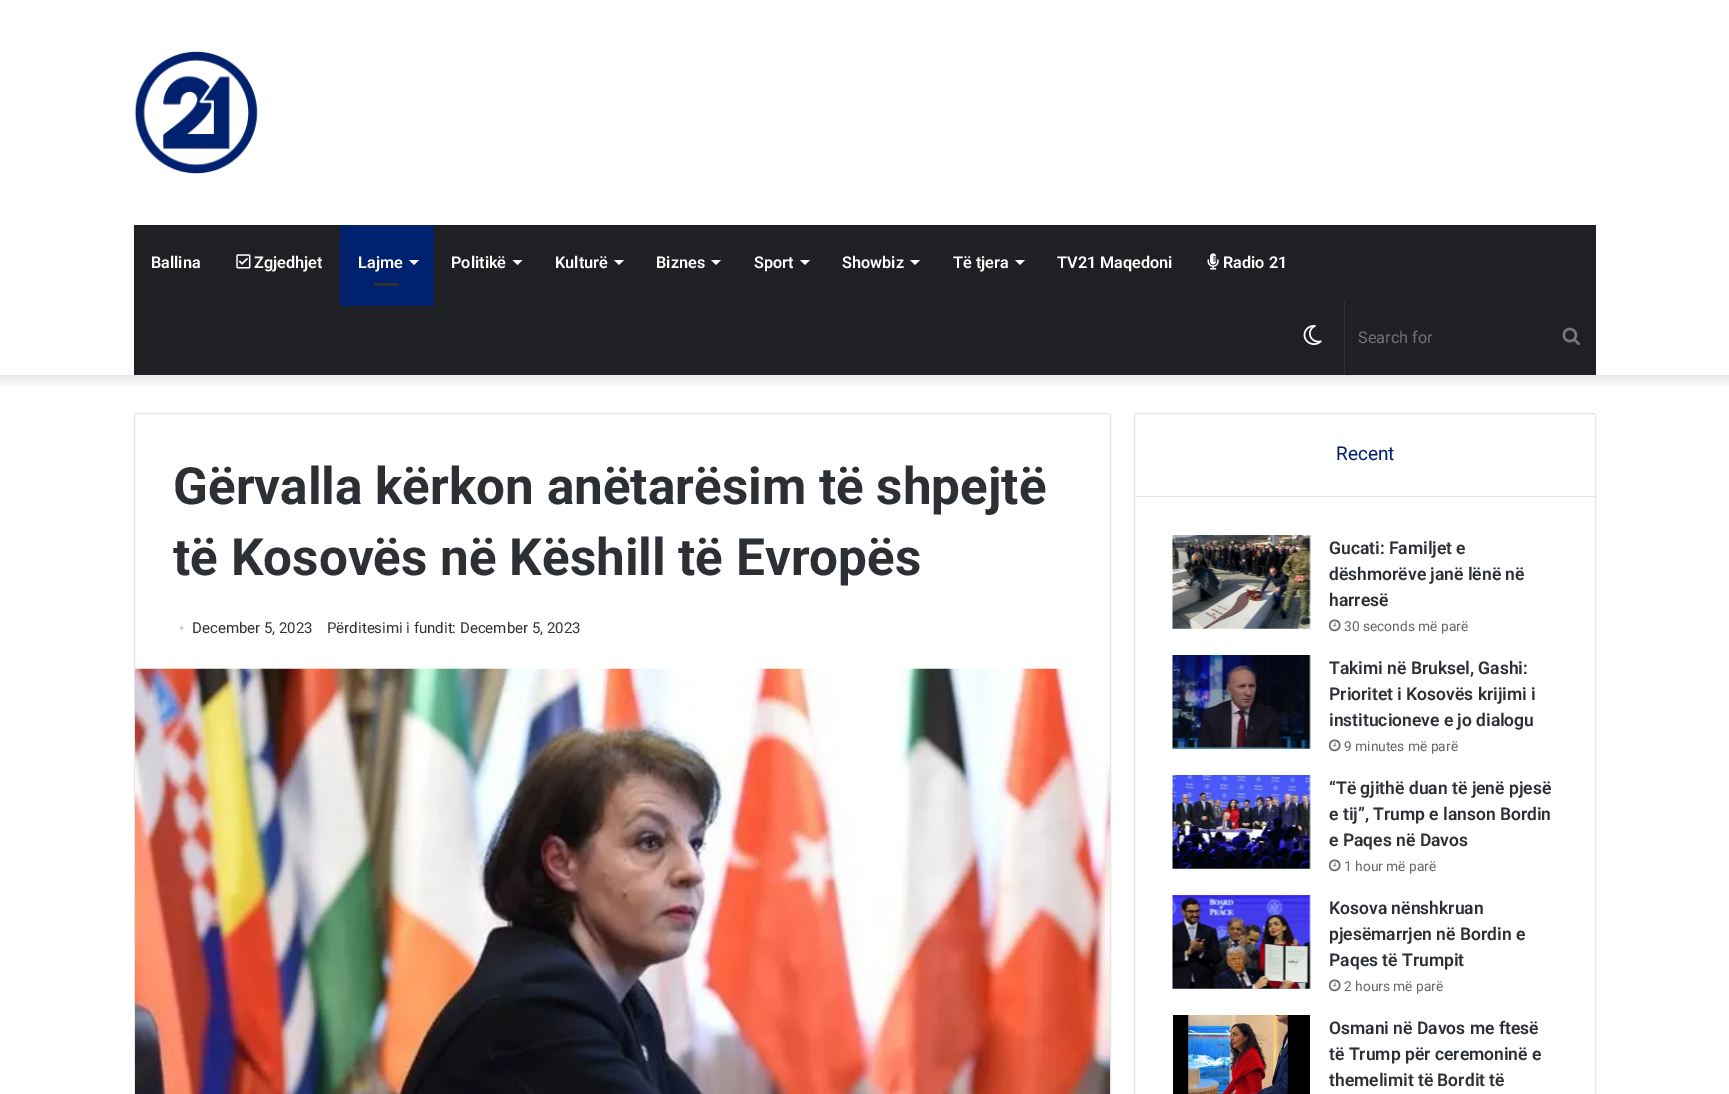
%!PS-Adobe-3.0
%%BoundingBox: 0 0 1729 1094
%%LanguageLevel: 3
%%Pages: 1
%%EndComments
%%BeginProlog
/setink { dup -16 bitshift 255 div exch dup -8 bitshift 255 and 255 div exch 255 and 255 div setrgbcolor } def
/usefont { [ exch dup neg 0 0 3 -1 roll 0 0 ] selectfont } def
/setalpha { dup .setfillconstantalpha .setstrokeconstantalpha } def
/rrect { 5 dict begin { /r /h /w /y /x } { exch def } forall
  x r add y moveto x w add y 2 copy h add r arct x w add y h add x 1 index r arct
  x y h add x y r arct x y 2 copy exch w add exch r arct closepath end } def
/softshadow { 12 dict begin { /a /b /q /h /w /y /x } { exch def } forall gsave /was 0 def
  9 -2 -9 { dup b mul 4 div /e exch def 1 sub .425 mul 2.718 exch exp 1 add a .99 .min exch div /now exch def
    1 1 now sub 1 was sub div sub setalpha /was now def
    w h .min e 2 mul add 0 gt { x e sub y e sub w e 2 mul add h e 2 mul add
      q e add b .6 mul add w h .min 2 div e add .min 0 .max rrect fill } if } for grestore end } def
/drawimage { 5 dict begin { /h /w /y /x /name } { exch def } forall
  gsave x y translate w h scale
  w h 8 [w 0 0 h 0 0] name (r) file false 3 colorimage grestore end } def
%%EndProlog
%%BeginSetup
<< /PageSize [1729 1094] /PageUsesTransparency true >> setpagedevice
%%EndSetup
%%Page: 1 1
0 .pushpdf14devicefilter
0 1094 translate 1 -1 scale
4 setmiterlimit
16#FFFFFF setink
0 0 1729 1094 rectfill
gsave
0 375 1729 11 rectclip
16#000000 setink
-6 -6 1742 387 0 6 0.1 softshadow
grestore
(img1.raw) 134 51 124 123 drawimage
16#1F2024 setink
134 225 1462 150 rectfill
/Roboto-SemiBold 16.25 usefont
16#FFFFFF setink
151 268 moveto (Ballina) show
(img2.raw) 236 254 15 15 drawimage
254 268 moveto (Zgjedhjet) show
16#00216D setink
340 225 94 81 rectfill
16#FFFFFF setink
358 268 moveto (Lajme) show
409 260 moveto 419 260 lineto 414 265 lineto closepath fill
16#2C2F34 setink
374 283 25 3 rectfill
16#FFFFFF setink
451 268 moveto (Politikë) show
512.5 260 moveto 522.5 260 lineto 517.5 265 lineto closepath fill
555 268 moveto (Kulturë) show
614 260 moveto 624 260 lineto 619 265 lineto closepath fill
656 268 moveto (Biznes) show
711 260 moveto 721 260 lineto 716 265 lineto closepath fill
754 268 moveto (Sport) show
800 260 moveto 810 260 lineto 805 265 lineto closepath fill
842 268 moveto (Showbiz) show
910 260 moveto 920 260 lineto 915 265 lineto closepath fill
953 268 moveto (Të tjera) show
1015 260 moveto 1025 260 lineto 1020 265 lineto closepath fill
1057 268 moveto (TV21 Maqedoni) show
(img3.raw) 1207 253 12 17 drawimage
1223 268 moveto (Radio 21) show
(img4.raw) 1303 325 19 20 drawimage
16#2F3033 setink
1344 300 1 75 rectfill
/Roboto-Regular 16.25 usefont
16#757575 setink
1358 343 moveto (Search for) show
(img5.raw) 1562 327 18 18 drawimage
16#E6E6E6 setink
134.5 413.5 976 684 2 rrect stroke
/Roboto-Bold 51.25 usefont
16#2C2F34 setink
173 504 moveto (Gërvalla kërkon anëtarësim të shpejtë) show
173 575 moveto (të Kosovës në Këshill të Evropës) show
/LiberationSerif-Regular 15 usefont
16#CCCCCC setink
179 633 moveto (•) show
/Roboto-Regular 15 usefont
16#333333 setink
192 633 moveto (December 5, 2023) show
327 633 moveto (Përditesimi i fundit: December 5, 2023) show
(img6.raw) 135 668 975 426 drawimage
16#E6E6E6 setink
1134.5 413.5 461 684 2 rrect stroke
1135 496 460 1 rectfill
/Roboto-Regular 19 usefont
16#00216D setink
1336 460 moveto (Recent) show
(img7.raw) 1172 535 139 94 drawimage
/Roboto-SemiBold 17.5 usefont
16#2C2F34 setink
[
    [(Gucati: Familjet e) 1329 554]
    [(dëshmorëve janë lënë në) 1329 580]
    [(harresë) 1329 606]
] { aload pop moveto show } forall
(img8.raw) 1329 619 12 13 drawimage
/Roboto-Regular 13.75 usefont
16#666666 setink
1344 631 moveto (30 seconds më parë) show
(img9.raw) 1172 655 139 94 drawimage
/Roboto-SemiBold 17.5 usefont
16#2C2F34 setink
[
    [(Takimi në Bruksel, Gashi:) 1329 674]
    [(Prioritet i Kosovës krijimi i) 1329 700]
    [(institucioneve e jo dialogu) 1329 726]
] { aload pop moveto show } forall
(img8.raw) 1329 739 12 13 drawimage
/Roboto-Regular 13.75 usefont
16#666666 setink
1344 751 moveto (9 minutes më parë) show
(img10.raw) 1172 775 139 94 drawimage
/Roboto-SemiBold 17.5 usefont
16#2C2F34 setink
[
    [(“Të gjithë duan të jenë pjesë) 1329 794]
    [(e tij”, Trump e lanson Bordin) 1329 820]
    [(e Paqes në Davos) 1329 846]
] { aload pop moveto show } forall
(img8.raw) 1329 859 12 13 drawimage
/Roboto-Regular 13.75 usefont
16#666666 setink
1344 871 moveto (1 hour më parë) show
(img11.raw) 1172 895 139 94 drawimage
/Roboto-SemiBold 17.5 usefont
16#2C2F34 setink
[
    [(Kosova nënshkruan) 1329 914]
    [(pjesëmarrjen në Bordin e) 1329 940]
    [(Paqes të Trumpit) 1329 966]
] { aload pop moveto show } forall
(img8.raw) 1329 979 12 13 drawimage
/Roboto-Regular 13.75 usefont
16#666666 setink
1344 991 moveto (2 hours më parë) show
(img12.raw) 1173 1015 137 79 drawimage
/Roboto-SemiBold 17.5 usefont
16#2C2F34 setink
[
    [(Osmani në Davos me ftesë) 1329 1034]
    [(të Trump për ceremoninë e) 1329 1060]
    [(themelimit të Bordit të) 1329 1086]
] { aload pop moveto show } forall
.poppdf14devicefilter showpage
%%EOF
